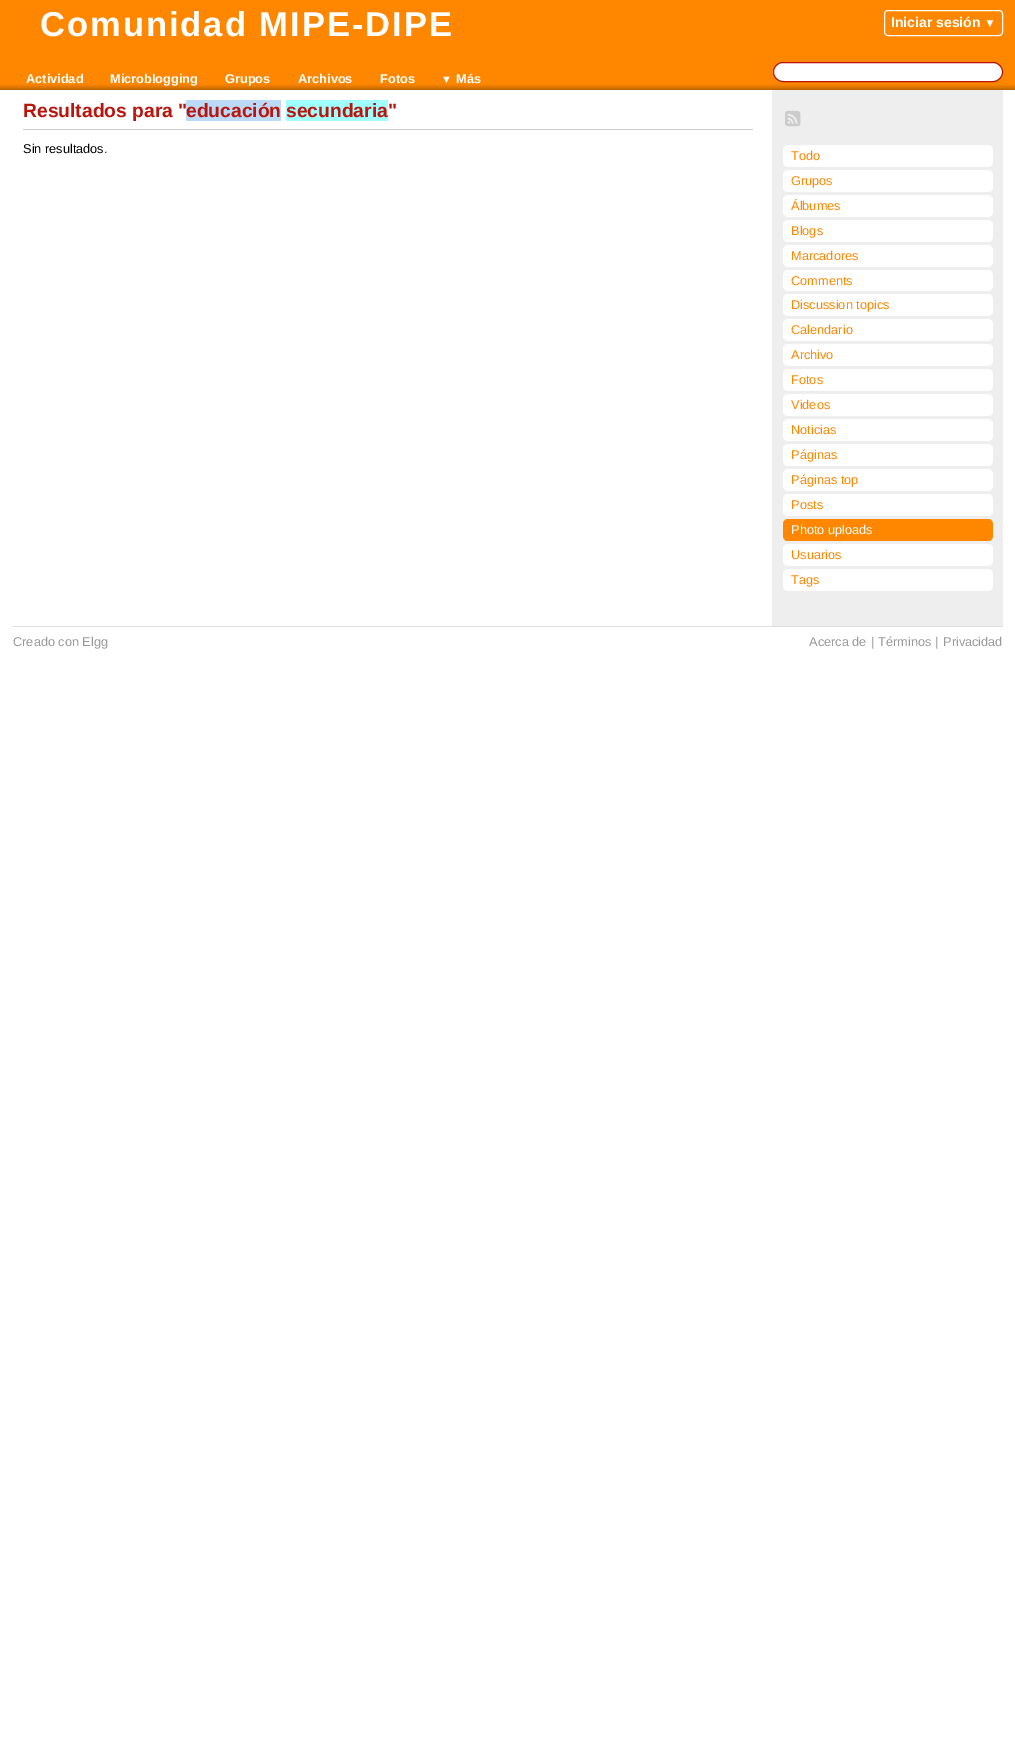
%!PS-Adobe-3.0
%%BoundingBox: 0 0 1015 1744
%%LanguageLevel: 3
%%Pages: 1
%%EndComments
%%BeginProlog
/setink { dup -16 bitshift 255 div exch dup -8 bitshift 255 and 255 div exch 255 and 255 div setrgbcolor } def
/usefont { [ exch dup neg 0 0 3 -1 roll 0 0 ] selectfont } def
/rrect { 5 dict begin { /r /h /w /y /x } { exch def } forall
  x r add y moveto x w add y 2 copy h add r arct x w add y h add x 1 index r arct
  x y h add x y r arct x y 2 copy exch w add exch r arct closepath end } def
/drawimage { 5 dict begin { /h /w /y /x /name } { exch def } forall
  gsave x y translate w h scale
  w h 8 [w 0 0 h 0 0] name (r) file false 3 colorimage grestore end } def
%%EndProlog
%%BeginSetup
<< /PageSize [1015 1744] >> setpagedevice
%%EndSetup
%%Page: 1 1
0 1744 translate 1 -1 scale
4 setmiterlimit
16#FFFFFF setink
0 0 1015 1744 rectfill
16#FF8700 setink
0 0 1015 90 rectfill
(img1.raw) 0 84 1015 6 drawimage
/LiberationSans-Bold 34.5 usefont
16#FFFFFF setink
40 36 moveto 2 0 (Comunidad MIPE-DIPE) ashow
884.5 10.5 118 25 3.5 rrect stroke
/LiberationSans-Bold 14 usefont
891 27 moveto (Iniciar sesión) show
/LiberationSans-Bold 12 usefont
984 27 moveto (▼) show
/LiberationSans-Bold 12.75 usefont
[
    [(Actividad) 26 83]
    [(Microblogging) 110 83]
    [(Grupos) 225 83]
    [(Archivos) 298 83]
    [(Fotos) 380 83]
] { aload pop moveto show } forall
/LiberationSans-Bold 11 usefont
441 83 moveto (▼) show
/LiberationSans-Bold 12.75 usefont
456 83 moveto (Más) show
773.5 62.5 229 19 9.5 rrect gsave fill grestore
16#B9150D setink
stroke
16#EEEEEE setink
772 90 231 536 rectfill
16#CCCCCC setink
23 129 730 1 rectfill
/LiberationSans-Bold 19.25 usefont
16#B9150D setink
23 117 moveto (Resultados para ") show
16#BBDAF7 setink
186 100 95 21 rectfill
16#B9150D setink
186 117 moveto (educación) show
16#A0FFFF setink
286 100 102 21 rectfill
16#B9150D setink
286 117 moveto (secundaria") show
/LiberationSans-Regular 12.75 usefont
16#000000 setink
23 153 moveto (Sin resultados.) show
(img2.raw) 785 110 16 17 drawimage
16#FFFFFF setink
783 145 210 22 5 rrect fill
16#FF8700 setink
791 160 moveto (Todo) show
16#FFFFFF setink
783 170 210 22 5 rrect fill
16#FF8700 setink
791 185 moveto (Grupos) show
16#FFFFFF setink
783 195 210 22 5 rrect fill
16#FF8700 setink
791 210 moveto (Álbumes) show
16#FFFFFF setink
783 220 210 22 5 rrect fill
16#FF8700 setink
791 235 moveto (Blogs) show
16#FFFFFF setink
783 245 210 22 5 rrect fill
16#FF8700 setink
791 260 moveto (Marcadores) show
16#FFFFFF setink
783 270 210 21 5 rrect fill
16#FF8700 setink
791 285 moveto (Comments) show
16#FFFFFF setink
783 294 210 22 5 rrect fill
16#FF8700 setink
791 309 moveto (Discussion topics) show
16#FFFFFF setink
783 319 210 22 5 rrect fill
16#FF8700 setink
791 334 moveto (Calendario) show
16#FFFFFF setink
783 344 210 22 5 rrect fill
16#FF8700 setink
791 359 moveto (Archivo) show
16#FFFFFF setink
783 369 210 22 5 rrect fill
16#FF8700 setink
791 384 moveto (Fotos) show
16#FFFFFF setink
783 394 210 22 5 rrect fill
16#FF8700 setink
791 409 moveto (Videos) show
16#FFFFFF setink
783 419 210 22 5 rrect fill
16#FF8700 setink
791 434 moveto (Noticias) show
16#FFFFFF setink
783 444 210 22 5 rrect fill
16#FF8700 setink
791 459 moveto (Páginas) show
16#FFFFFF setink
783 469 210 22 5 rrect fill
16#FF8700 setink
791 484 moveto (Páginas top) show
16#FFFFFF setink
783 494 210 22 5 rrect fill
16#FF8700 setink
791 509 moveto (Posts) show
783 519 210 22 5 rrect fill
16#FFFFFF setink
791 534 moveto (Photo uploads) show
783 544 210 22 5 rrect fill
16#FF8700 setink
791 559 moveto (Usuarios) show
16#FFFFFF setink
783 569 210 22 5 rrect fill
16#FF8700 setink
791 584 moveto (Tags) show
16#DEDEDE setink
13 626 990 1 rectfill
16#999999 setink
[
    [(Creado con Elgg) 13 646]
    [(Acerca de) 809 646]
    [(|) 871 646]
    [(Términos) 878 646]
    [(|) 935 646]
    [(Privacidad) 943 646]
] { aload pop moveto show } forall
showpage
%%EOF
